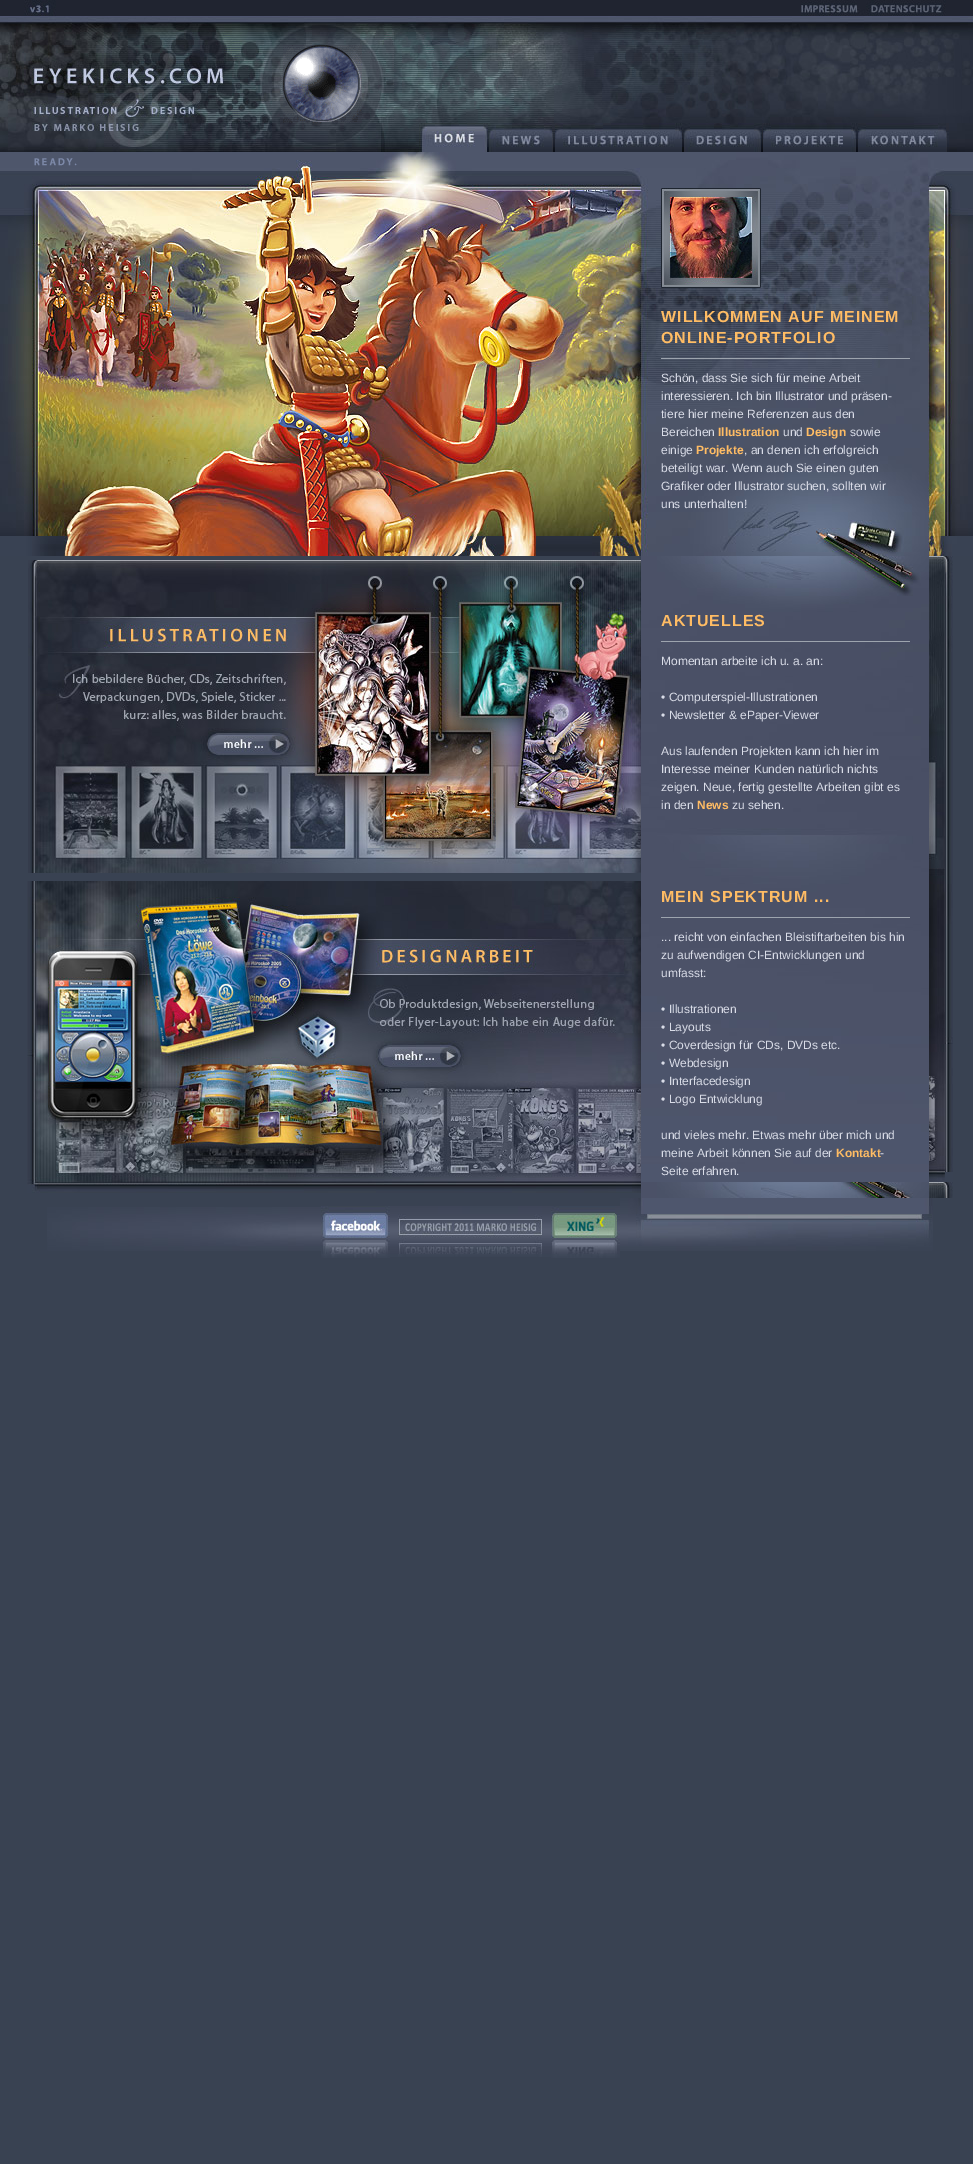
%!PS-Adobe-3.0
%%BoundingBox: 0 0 973 2164
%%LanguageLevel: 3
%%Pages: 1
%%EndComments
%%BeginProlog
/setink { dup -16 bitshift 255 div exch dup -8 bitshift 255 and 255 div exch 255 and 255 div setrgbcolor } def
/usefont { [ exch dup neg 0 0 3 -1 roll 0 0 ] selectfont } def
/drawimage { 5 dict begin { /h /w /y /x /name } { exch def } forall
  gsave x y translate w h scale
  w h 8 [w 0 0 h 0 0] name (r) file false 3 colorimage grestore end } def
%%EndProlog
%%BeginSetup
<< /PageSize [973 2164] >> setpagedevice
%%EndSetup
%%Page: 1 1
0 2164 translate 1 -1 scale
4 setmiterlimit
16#394252 setink
0 0 973 2164 rectfill
(img1.raw) 0 0 793 16 drawimage
(img2.raw) 793 0 73 16 drawimage
(img3.raw) 866 0 83 16 drawimage
16#202430 setink
949 0 24 16 rectfill
(img4.raw) 0 16 973 29 drawimage
(img5.raw) 0 45 283 78 drawimage
(img6.raw) 283 45 79 78 drawimage
(img7.raw) 362 45 611 78 drawimage
(img8.raw) 0 123 419 29 drawimage
(img9.raw) 419 123 69 29 drawimage
(img10.raw) 488 123 67 29 drawimage
(img11.raw) 555 123 127 29 drawimage
(img12.raw) 682 123 81 29 drawimage
(img13.raw) 763 123 95 29 drawimage
(img14.raw) 858 123 91 29 drawimage
(img15.raw) 949 123 24 29 drawimage
(img16.raw) 0 152 973 404 drawimage
(img17.raw) 34 158 43 8 drawimage
(img18.raw) 661 188 100 100 drawimage
/LiberationSans-Bold 16 usefont
16#FFBC64 setink
661 322 moveto 1 0 (WILLKOMMEN AUF MEINEM) ashow
661 343 moveto 1 0 (ONLINE-PORTFOLIO) ashow
16#9DA4AE setink
661 358 249 1 rectfill
/LiberationSans-Regular 12 usefont
16#D9DCE7 setink
[
    [(Schön, dass Sie sich für meine Arbeit) 661 382]
    [(interessieren. Ich bin Illustrator und präsen-) 661 400]
    [(tiere hier meine Referenzen aus den) 661 418]
    [(Bereichen) 661 436]
] { aload pop moveto show } forall
/LiberationSans-Bold 12 usefont
16#FFBC64 setink
718 436 moveto (Illustration) show
/LiberationSans-Regular 12 usefont
16#D9DCE7 setink
783 436 moveto (und) show
/LiberationSans-Bold 12 usefont
16#FFBC64 setink
806 436 moveto (Design) show
/LiberationSans-Regular 12 usefont
16#D9DCE7 setink
850 436 moveto (sowie) show
661 454 moveto (einige) show
/LiberationSans-Bold 12 usefont
16#FFBC64 setink
696 454 moveto (Projekte) show
/LiberationSans-Regular 12 usefont
16#D9DCE7 setink
[
    [(, an denen ich erfolgreich) 744 454]
    [(beteiligt war. Wenn auch Sie einen guten) 661 472]
    [(Grafiker oder Illustrator suchen, sollten wir) 661 490]
    [(uns unterhalten!) 661 508]
] { aload pop moveto show } forall
(img19.raw) 27 881 614 312 drawimage
(img20.raw) 28 560 613 313 drawimage
(img21.raw) 641 556 312 642 drawimage
/LiberationSans-Bold 16 usefont
16#FFBC64 setink
661 626 moveto 1 0 (AKTUELLES) ashow
16#9DA4AE setink
661 641 249 1 rectfill
/LiberationSans-Regular 12 usefont
16#D9DCE7 setink
[
    [(Momentan arbeite ich u. a. an:) 661 665]
    [(• Computerspiel-Illustrationen) 661 701]
    [(• Newsletter & ePaper-Viewer) 661 719]
    [(Aus laufenden Projekten kann ich hier im) 661 755]
    [(Interesse meiner Kunden natürlich nichts) 661 773]
    [(zeigen. Neue, fertig gestellte Arbeiten gibt es) 661 791]
    [(in den) 661 809]
] { aload pop moveto show } forall
/LiberationSans-Bold 12 usefont
16#FFBC64 setink
697 809 moveto (News) show
/LiberationSans-Regular 12 usefont
16#D9DCE7 setink
732 809 moveto (zu sehen.) show
/LiberationSans-Bold 16 usefont
16#FFBC64 setink
661 902 moveto 1 0 (MEIN SPEKTRUM ...) ashow
16#9DA4AE setink
661 917 249 1 rectfill
/LiberationSans-Regular 12 usefont
16#D9DCE7 setink
[
    [(... reicht von einfachen Bleistiftarbeiten bis hin) 661 941]
    [(zu aufwendigen CI-Entwicklungen und) 661 959]
    [(umfasst:) 661 977]
    [(• Illustrationen) 661 1013]
    [(• Layouts) 661 1031]
    [(• Coverdesign für CDs, DVDs etc.) 661 1049]
    [(• Webdesign) 661 1067]
    [(• Interfacedesign) 661 1085]
    [(• Logo Entwicklung) 661 1103]
    [(und vieles mehr. Etwas mehr über mich und) 661 1139]
    [(meine Arbeit können Sie auf der) 661 1157]
] { aload pop moveto show } forall
/LiberationSans-Bold 12 usefont
16#FFBC64 setink
836 1157 moveto (Kontakt) show
/LiberationSans-Regular 12 usefont
16#D9DCE7 setink
880 1157 moveto (-) show
661 1175 moveto (Seite erfahren.) show
(img22.raw) 47 1207 274 44 drawimage
(img23.raw) 321 1206 69 52 drawimage
(img24.raw) 390 1206 161 51 drawimage
(img25.raw) 551 1206 69 52 drawimage
(img26.raw) 620 1198 313 53 drawimage
showpage
%%EOF
